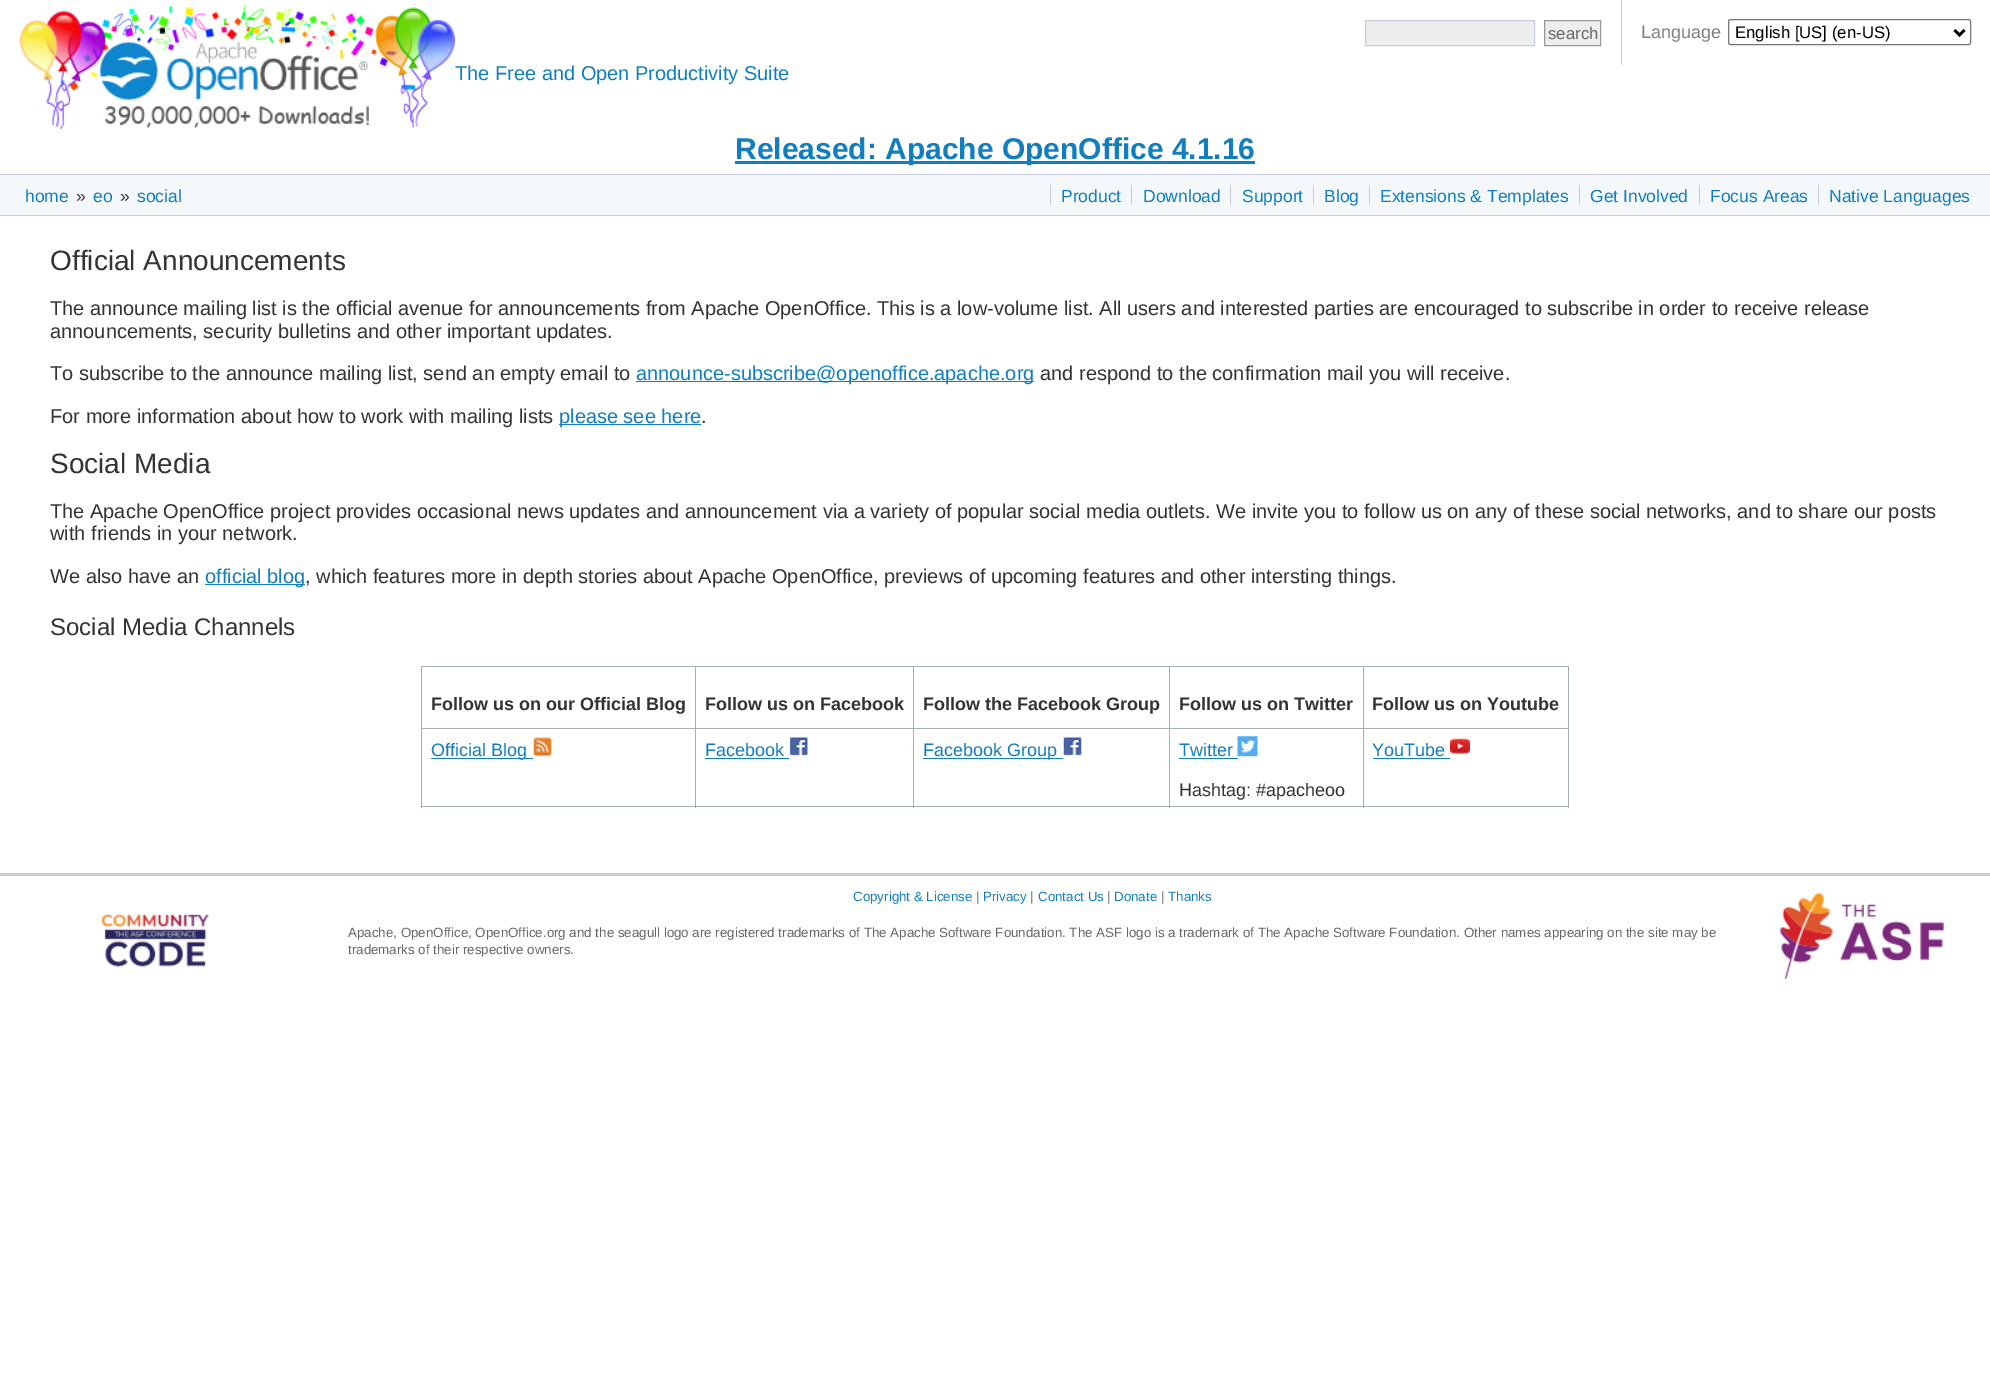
%!PS-Adobe-3.0
%%BoundingBox: 0 0 1990 1400
%%LanguageLevel: 3
%%Pages: 1
%%EndComments
%%BeginProlog
/setink { dup -16 bitshift 255 div exch dup -8 bitshift 255 and 255 div exch 255 and 255 div setrgbcolor } def
/usefont { [ exch dup neg 0 0 3 -1 roll 0 0 ] selectfont } def
/rrect { 5 dict begin { /r /h /w /y /x } { exch def } forall
  x r add y moveto x w add y 2 copy h add r arct x w add y h add x 1 index r arct
  x y h add x y r arct x y 2 copy exch w add exch r arct closepath end } def
/drawimage { 5 dict begin { /h /w /y /x /name } { exch def } forall
  gsave x y translate w h scale
  w h 8 [w 0 0 h 0 0] name (r) file false 3 colorimage grestore end } def
%%EndProlog
%%BeginSetup
<< /PageSize [1990 1400] >> setpagedevice
%%EndSetup
%%Page: 1 1
0 1400 translate 1 -1 scale
4 setmiterlimit
16#FFFFFF setink
0 0 1990 1400 rectfill
(img1.raw) 20 5 435 125 drawimage
16#EEEEEE setink
1365.5 20.5 moveto 1534.5 20.5 lineto 1534.5 45.5 lineto 1365.5 45.5 lineto closepath gsave fill grestore
16#C6CBDD setink
stroke
16#EEEEEE setink
1544.5 20.5 moveto 1600.5 20.5 lineto 1600.5 45.5 lineto 1544.5 45.5 lineto closepath gsave fill grestore
16#999999 setink
stroke
/LiberationSans-Regular 16.75 usefont
16#666666 setink
1548 39 moveto (search) show
16#CCCCCC setink
1621 0 1 65 rectfill
/LiberationSans-Regular 18 usefont
16#808080 setink
1641 38 moveto (Language) show
16#767676 setink
1728.5 19.5 242 25 2 rrect stroke
16#000000 setink
2.5 setlinewidth
1954.5 30 moveto 1959.5 35 lineto 1964.5 30 lineto stroke
/LiberationSans-Regular 16.75 usefont
1735 38 moveto (English [US] \(en-US\)) show
/LiberationSans-Regular 20 usefont
16#107EC0 setink
455 80 moveto (The Free and Open Productivity Suite) show
735 161 520 3 rectfill
/LiberationSans-Bold 30 usefont
735 159 moveto (Released: Apache OpenOffice 4.1.16) show
[
    [0 175 1990 40 16#F5F8FA]
    [0 174 1990 1 16#C6CBDD]
    [0 215 1990 1 16#C6CBDD]
] { aload pop setink rectfill } forall
/LiberationSans-Regular 17.5 usefont
16#107EC0 setink
25 202 moveto (home) show
16#333333 setink
76 202 moveto (») show
16#107EC0 setink
93 202 moveto (eo) show
16#333333 setink
120 202 moveto (») show
16#107EC0 setink
137 202 moveto (social) show
1061 202 moveto (Product) show
16#C6CBDD setink
1050 185 1 20 rectfill
16#107EC0 setink
1143 202 moveto (Download) show
16#C6CBDD setink
1131 185 1 20 rectfill
16#107EC0 setink
1242 202 moveto (Support) show
16#C6CBDD setink
1230 185 1 20 rectfill
16#107EC0 setink
1324 202 moveto (Blog) show
16#C6CBDD setink
1313 185 1 20 rectfill
16#107EC0 setink
1380 202 moveto (Extensions & Templates) show
16#C6CBDD setink
1369 185 1 20 rectfill
16#107EC0 setink
1590 202 moveto (Get Involved) show
16#C6CBDD setink
1579 185 1 20 rectfill
16#107EC0 setink
1710 202 moveto (Focus Areas) show
16#C6CBDD setink
1699 185 1 20 rectfill
16#107EC0 setink
1829 202 moveto (Native Languages) show
16#C6CBDD setink
1818 185 1 20 rectfill
/LiberationSans-Regular 28 usefont
16#333333 setink
50 270 moveto (Official Announcements) show
/LiberationSans-Regular 20 usefont
[
    [(The announce mailing list is the official avenue for announcements from Apache OpenOffice. This is a low-volume list. All users and interested parties are encouraged to subscribe in order to receive release) 50 315]
    [(announcements, security bulletins and other important updates.) 50 338]
    [(To subscribe to the announce mailing list, send an empty email to) 50 380]
] { aload pop moveto show } forall
16#107EC0 setink
636 381 398 1 rectfill
636 380 moveto (announce-subscribe@openoffice.apache.org) show
16#333333 setink
1040 380 moveto (and respond to the confirmation mail you will receive.) show
50 423 moveto (For more information about how to work with mailing lists) show
16#107EC0 setink
559 424 142 1 rectfill
559 423 moveto (please see here) show
16#333333 setink
701 423 moveto (.) show
/LiberationSans-Regular 28 usefont
50 473 moveto (Social Media) show
/LiberationSans-Regular 20 usefont
[
    [(The Apache OpenOffice project provides occasional news updates and announcement via a variety of popular social media outlets. We invite you to follow us on any of these social networks, and to share our posts) 50 518]
    [(with friends in your network.) 50 540]
    [(We also have an) 50 583]
] { aload pop moveto show } forall
16#107EC0 setink
205 584 100 1 rectfill
205 583 moveto (official blog) show
16#333333 setink
305 583 moveto (, which features more in depth stories about Apache OpenOffice, previews of upcoming features and other intersting things.) show
/LiberationSans-Regular 24 usefont
50 635 moveto (Social Media Channels) show
[
    [1363 666 206 1 16#A3AFB6]
    [1363 728 206 1 16#A3AFB6]
    [1568 728 1 80 16#A3AFB6]
    [1363 806 206 1 16#A3AFB6]
    [1363 728 1 80 16#A3AFB6]
    [1169 728 195 1 16#A3AFB6]
    [1363 666 1 63 16#A3AFB6]
    [1169 666 195 1 16#A3AFB6]
    [1169 806 195 1 16#A3AFB6]
    [1169 728 1 80 16#A3AFB6]
    [913 728 257 1 16#A3AFB6]
    [1169 666 1 63 16#A3AFB6]
    [913 666 257 1 16#A3AFB6]
    [913 806 257 1 16#A3AFB6]
    [913 728 1 80 16#A3AFB6]
    [695 728 219 1 16#A3AFB6]
    [913 666 1 63 16#A3AFB6]
    [695 666 219 1 16#A3AFB6]
    [695 806 219 1 16#A3AFB6]
    [695 728 1 80 16#A3AFB6]
    [421 728 275 1 16#A3AFB6]
    [695 666 1 63 16#A3AFB6]
    [421 666 275 1 16#A3AFB6]
    [421 806 275 1 16#A3AFB6]
    [421 728 1 80 16#A3AFB6]
    [421 666 1 63 16#A3AFB6]
] { aload pop setink rectfill } forall
/LiberationSans-Bold 18 usefont
16#333333 setink
[
    [(Follow us on our Official Blog) 431 710]
    [(Follow us on Facebook) 705 710]
    [(Follow the Facebook Group) 923 710]
    [(Follow us on Twitter) 1179 710]
] { aload pop moveto show } forall
16#A3AFB6 setink
1568 666 1 63 rectfill
16#333333 setink
1372 710 moveto (Follow us on Youtube) show
16#107EC0 setink
431 758 102 1 rectfill
/LiberationSans-Regular 18 usefont
431 756 moveto (Official Blog) show
(img2.raw) 533 737 19 20 drawimage
705 756 moveto (Facebook) show
705 758 84 1 rectfill
(img3.raw) 789 737 19 19 drawimage
923 758 140 1 rectfill
923 756 moveto (Facebook Group) show
(img4.raw) 1063 737 19 19 drawimage
1179 756 moveto (Twitter) show
1179 758 59 1 rectfill
(img5.raw) 1237 736 21 21 drawimage
16#333333 setink
1179 796 moveto (Hashtag: #apacheoo) show
16#107EC0 setink
1372 756 moveto (YouTube) show
1373 758 77 1 rectfill
(img6.raw) 1450 738 20 16 drawimage
16#CCCCCC setink
0 873 1990 3 rectfill
(img7.raw) 101 913 108 54 drawimage
/LiberationSans-Regular 13.33 usefont
16#107EC0 setink
853 901 moveto (Copyright & License) show
16#666666 setink
976 901 moveto (|) show
16#107EC0 setink
983 901 moveto (Privacy) show
16#666666 setink
1030 901 moveto (|) show
16#107EC0 setink
1038 901 moveto (Contact Us) show
16#666666 setink
1107 901 moveto (|) show
16#107EC0 setink
1114 901 moveto (Donate) show
16#666666 setink
1161 901 moveto (|) show
16#107EC0 setink
1168 901 moveto (Thanks) show
16#666666 setink
348 937 moveto (Apache, OpenOffice, OpenOffice.org and the seagull logo are registered trademarks of The Apache Software Foundation. The ASF logo is a trademark of The Apache Software Foundation. Other names appearing on the site may be) show
348 954 moveto (trademarks of their respective owners.) show
(img8.raw) 1779 892 165 87 drawimage
showpage
%%EOF
